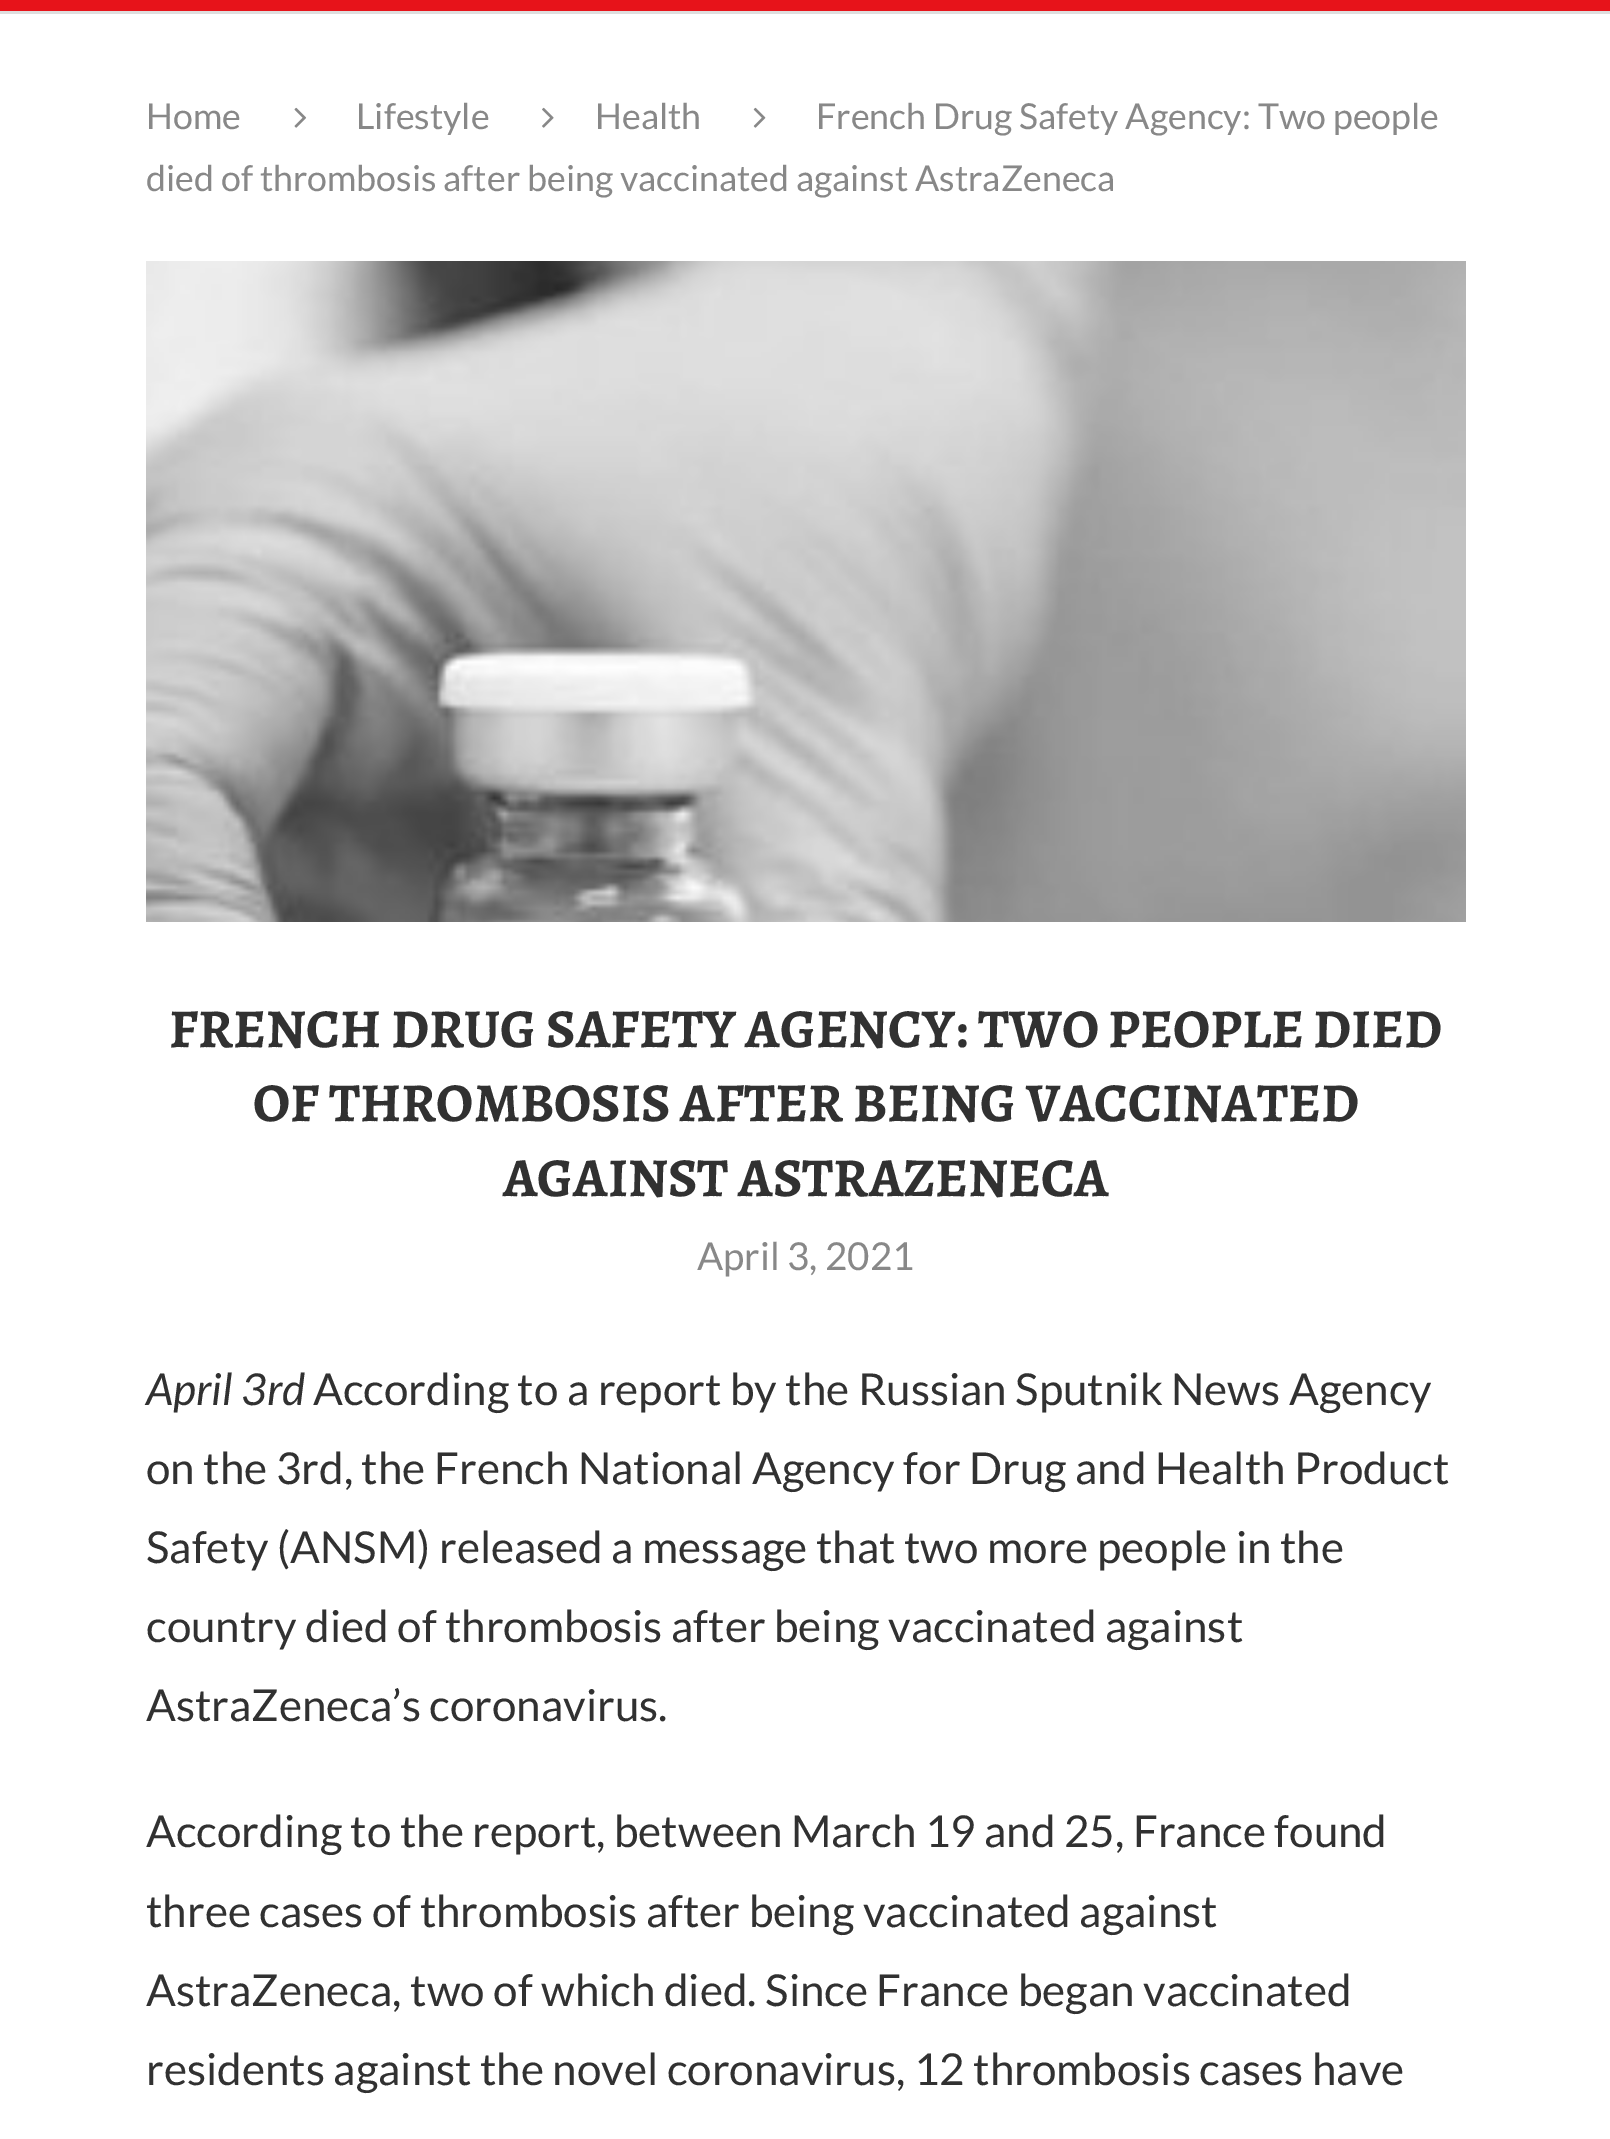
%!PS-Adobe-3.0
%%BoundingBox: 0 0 1610 2139
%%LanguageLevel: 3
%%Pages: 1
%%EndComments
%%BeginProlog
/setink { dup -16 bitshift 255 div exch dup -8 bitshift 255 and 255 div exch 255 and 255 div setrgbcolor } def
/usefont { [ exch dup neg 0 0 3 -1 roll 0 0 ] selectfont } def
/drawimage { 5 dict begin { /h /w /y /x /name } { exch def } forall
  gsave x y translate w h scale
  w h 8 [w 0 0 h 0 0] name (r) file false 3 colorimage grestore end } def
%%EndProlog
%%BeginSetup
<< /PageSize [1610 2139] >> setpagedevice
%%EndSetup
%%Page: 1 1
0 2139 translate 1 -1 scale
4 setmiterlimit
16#FFFFFF setink
0 0 1610 2139 rectfill
16#E7131A setink
0 0 1610 11 rectfill
16#DEDEDE setink
0 11 1610 3 rectfill
/Lato-Regular 35.75 usefont
16#888888 setink
146 129 moveto (Home) show
(img1.raw) 294 107 13 21 drawimage
356 129 moveto (Lifestyle) show
(img2.raw) 542 107 12 21 drawimage
595 129 moveto (Health) show
(img3.raw) 753 107 13 21 drawimage
816 129 moveto (French Drug Safety Agency: Two people) show
146 191 moveto (died of thrombosis after being vaccinated against AstraZeneca) show
(img4.raw) 146 261 1320 661 drawimage
/Alegreya-Bold 55 usefont
16#313131 setink
[
    [(FRENCH DRUG SAFETY AGENCY: TWO PEOPLE DIED) 169 1047]
    [(OF THROMBOSIS AFTER BEING VACCINATED) 253 1121]
    [(AGAINST ASTRAZENECA) 503 1196]
] { aload pop moveto show } forall
/Lato-Regular 38.5 usefont
16#888888 setink
697 1270 moveto (April 3, 2021) show
/Lato-Italic 44 usefont
16#313131 setink
146 1405 moveto (April 3rd) show
/Lato-Regular 44 usefont
[
    [(According to a report by the Russian Sputnik News Agency) 313 1405]
    [(on the 3rd, the French National Agency for Drug and Health Product) 146 1484]
    [(Safety \(ANSM\) released a message that two more people in the) 146 1563]
    [(country died of thrombosis after being vaccinated against) 146 1642]
    [(AstraZeneca’s coronavirus.) 146 1721]
    [(According to the report, between March 19 and 25, France found) 146 1847]
    [(three cases of thrombosis after being vaccinated against) 146 1927]
    [(AstraZeneca, two of which died. Since France began vaccinated) 146 2006]
    [(residents against the novel coronavirus, 12 thrombosis cases have) 146 2085]
] { aload pop moveto show } forall
showpage
%%EOF
